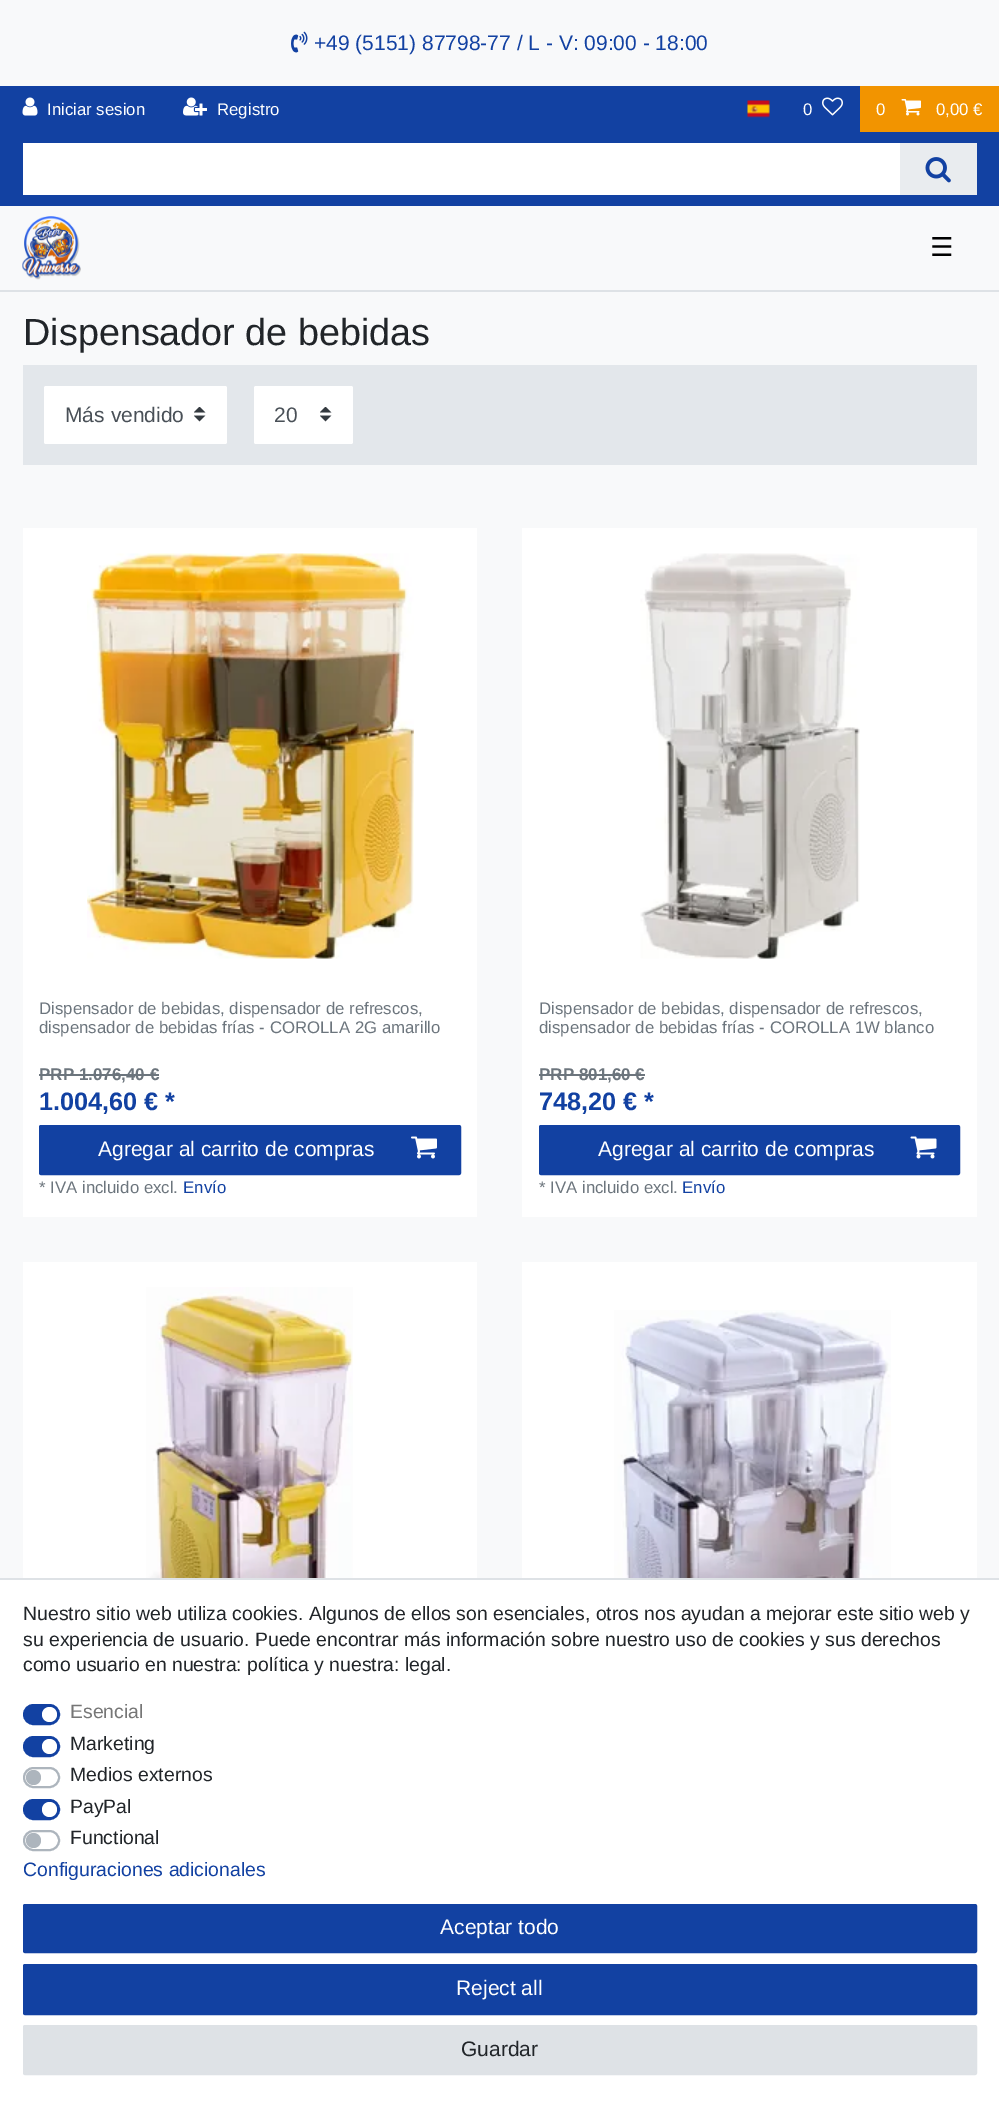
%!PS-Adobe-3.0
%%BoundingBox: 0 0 999 2105
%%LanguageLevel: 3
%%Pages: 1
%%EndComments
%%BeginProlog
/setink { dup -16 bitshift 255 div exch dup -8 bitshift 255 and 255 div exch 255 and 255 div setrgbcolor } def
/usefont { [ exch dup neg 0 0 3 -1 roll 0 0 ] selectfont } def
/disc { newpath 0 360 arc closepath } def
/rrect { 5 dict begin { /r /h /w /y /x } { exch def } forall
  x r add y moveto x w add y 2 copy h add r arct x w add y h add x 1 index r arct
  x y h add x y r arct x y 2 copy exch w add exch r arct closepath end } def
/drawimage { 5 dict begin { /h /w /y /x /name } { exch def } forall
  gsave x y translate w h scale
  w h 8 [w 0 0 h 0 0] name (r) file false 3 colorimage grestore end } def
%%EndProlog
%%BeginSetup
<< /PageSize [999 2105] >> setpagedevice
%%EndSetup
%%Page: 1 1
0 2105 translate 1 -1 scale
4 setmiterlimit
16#F8F9FA setink
0 0 999 2105 rectfill
(img1.raw) 291 31 17 22 drawimage
/LiberationSans-Regular 21 usefont
16#1241A2 setink
314 50 moveto (+49 \(5151\) 87798-77 / L - V: 09:00 - 18:00) show
0 86 999 120 rectfill
(img2.raw) 22 97 16 19 drawimage
/LiberationSans-Regular 16.8 usefont
16#FFFFFF setink
47 115 moveto (Iniciar sesion) show
(img3.raw) 183 97 24 19 drawimage
217 115 moveto (Registro) show
(img4.raw) 747 100 23 18 drawimage
803 115 moveto (0) show
(img5.raw) 822 97 21 19 drawimage
16#F29400 setink
860 86 139 46 rectfill
16#FFFFFF setink
876 115 moveto (0) show
(img6.raw) 901 99 20 17 drawimage
936 115 moveto (0,00 €) show
23 143 877 52 rectfill
16#E9ECEF setink
900 143 77 52 rectfill
(img7.raw) 925 157 26 26 drawimage
16#DEE2E6 setink
0 290 999 2 rectfill
(img8.raw) 22 216 59 64 drawimage
/DejaVuSans-Regular 26 usefont
16#000000 setink
930 256 moveto (☰) show
/LiberationSans-Regular 37.75 usefont
16#212529 setink
23 345 moveto (Dispensador de bebidas) show
16#E3E7EB setink
23 365 954 100 rectfill
16#FFFFFF setink
44 386 183 58 2 rrect fill
(img9.raw) 194 407 12 15 drawimage
/LiberationSans-Regular 21 usefont
16#495057 setink
65 422 moveto (Más vendido) show
16#FFFFFF setink
254 386 99 58 2 rrect fill
(img9.raw) 320 407 12 15 drawimage
16#495057 setink
274 422 moveto (20) show
16#FFFFFF setink
23 528 454 689 rectfill
(img10.raw) 87 553 327 406 drawimage
/LiberationSans-Regular 16.8 usefont
16#6C757D setink
39 1014 moveto (Dispensador de bebidas, dispensador de refrescos,) show
39 1033 moveto (dispensador de bebidas frías - COROLLA 2G amarillo) show
/LiberationSans-Bold 17 usefont
39 1080 moveto (PRP 1.076,40 €) show
39 1074 120 2 rectfill
/LiberationSans-Bold 25.25 usefont
16#1241A2 setink
39 1110 moveto (1.004,60 € *) show
40 1126 420 48 1 rrect gsave fill grestore
2 setlinewidth
stroke
/LiberationSans-Regular 21 usefont
16#FFFFFF setink
98 1156 moveto (Agregar al carrito de compras) show
(img11.raw) 411 1136 26 23 drawimage
/LiberationSans-Regular 16.8 usefont
16#6C757D setink
39 1193 moveto (* IVA incluido excl.) show
16#1241A2 setink
183 1193 moveto (Envío) show
16#FFFFFF setink
522 528 455 689 rectfill
(img12.raw) 640 553 220 406 drawimage
16#6C757D setink
539 1014 moveto (Dispensador de bebidas, dispensador de refrescos,) show
539 1033 moveto (dispensador de bebidas frías - COROLLA 1W blanco) show
/LiberationSans-Bold 17 usefont
539 1080 moveto (PRP 801,60 €) show
539 1074 106 2 rectfill
/LiberationSans-Bold 25.25 usefont
16#1241A2 setink
539 1110 moveto (748,20 € *) show
540 1126 419 48 1 rrect gsave fill grestore
stroke
/LiberationSans-Regular 21 usefont
16#FFFFFF setink
598 1156 moveto (Agregar al carrito de compras) show
(img13.raw) 910 1136 27 23 drawimage
/LiberationSans-Regular 16.8 usefont
16#6C757D setink
539 1193 moveto (* IVA incluido excl.) show
16#1241A2 setink
682 1193 moveto (Envío) show
16#FFFFFF setink
23 1262 454 316 rectfill
(img14.raw) 146 1287 207 291 drawimage
522 1262 455 316 rectfill
(img15.raw) 614 1310 277 268 drawimage
0 1580 999 525 rectfill
16#DEE2E6 setink
0 1578 999 2 rectfill
/LiberationSans-Regular 19.4 usefont
16#212529 setink
[
    [(Nuestro sitio web utiliza cookies. Algunos de ellos son esenciales, otros nos ayudan a mejorar este sitio web y) 23 1620]
    [(su experiencia de usuario. Puede encontrar más información sobre nuestro uso de cookies y sus derechos) 23 1646]
    [(como usuario en nuestra: política y nuestra: legal.) 23 1671]
] { aload pop moveto show } forall
16#1241A2 setink
24 1705 35 19 9.5 rrect gsave fill grestore
stroke
16#767676 setink
70 1718 moveto (Esencial) show
16#FFFFFF setink
49.5 1714.5 7.5 disc fill
16#1241A2 setink
24 1737 35 19 9.5 rrect gsave fill grestore
stroke
16#212529 setink
70 1750 moveto (Marketing) show
16#FFFFFF setink
49.5 1746.5 7.5 disc fill
16#ADB5BD setink
24 1768 35 19 9.5 rrect stroke
16#212529 setink
70 1781 moveto (Medios externos) show
16#ADB5BD setink
33.5 1777.5 7.5 disc fill
16#1241A2 setink
24 1800 35 19 9.5 rrect gsave fill grestore
stroke
16#212529 setink
70 1813 moveto (PayPal) show
16#FFFFFF setink
49.5 1809.5 7.5 disc fill
16#ADB5BD setink
24 1831 35 19 9.5 rrect stroke
16#212529 setink
70 1844 moveto (Functional) show
16#ADB5BD setink
33.5 1840.5 7.5 disc fill
16#1241A2 setink
23 1876 moveto (Configuraciones adicionales) show
24 1905 952 47 1 rrect gsave fill grestore
stroke
/LiberationSans-Regular 21 usefont
16#FFFFFF setink
440 1934 moveto (Aceptar todo) show
16#1241A2 setink
24 1965 952 49 1 rrect gsave fill grestore
stroke
16#FFFFFF setink
456 1995 moveto (Reject all) show
16#DEE2E6 setink
24 2026 952 48 1 rrect gsave fill grestore
stroke
16#212529 setink
461 2056 moveto (Guardar) show
showpage
%%EOF
